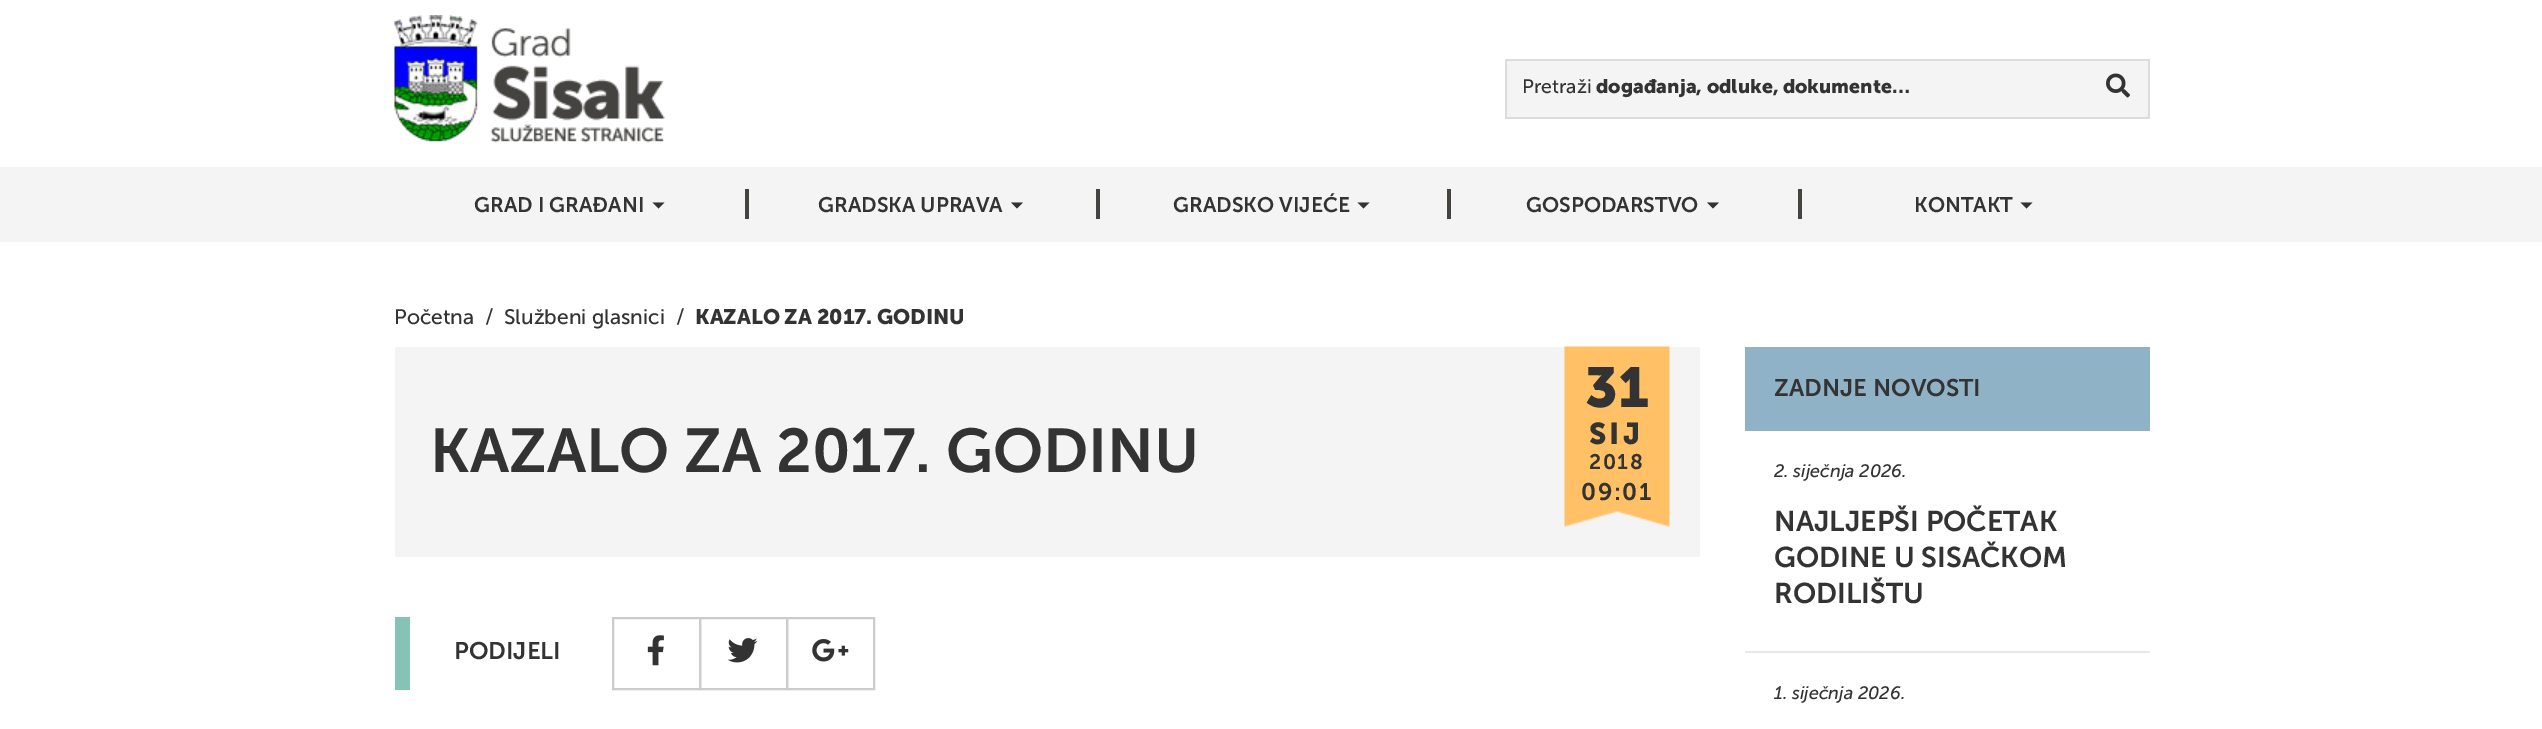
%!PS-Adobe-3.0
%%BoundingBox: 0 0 2542 729
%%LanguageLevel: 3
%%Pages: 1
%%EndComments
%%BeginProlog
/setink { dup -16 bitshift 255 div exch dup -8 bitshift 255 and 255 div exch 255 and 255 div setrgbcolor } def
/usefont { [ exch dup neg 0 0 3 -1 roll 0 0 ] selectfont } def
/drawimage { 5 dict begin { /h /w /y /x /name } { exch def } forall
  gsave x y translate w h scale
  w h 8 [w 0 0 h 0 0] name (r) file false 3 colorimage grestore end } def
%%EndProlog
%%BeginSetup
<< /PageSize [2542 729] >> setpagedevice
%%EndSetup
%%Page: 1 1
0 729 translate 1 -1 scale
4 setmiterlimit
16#FFFFFF setink
0 0 2542 729 rectfill
(img1.raw) 394 15 271 128 drawimage
[
    [1507 61 641 56 16#F4F4F4]
    [1505 59 645 2 16#DCDCDC]
    [2148 59 2 60 16#DCDCDC]
    [1505 117 645 2 16#DCDCDC]
] { aload pop setink rectfill } forall
(img2.raw) 2106 73 24 25 drawimage
1505 59 2 60 rectfill
/MuseoSans-Regular 19.5 usefont
16#333333 setink
1522 93 moveto (Pretraži) show
/MuseoSans-Bold 19.5 usefont
1596 93 moveto (događanja, odluke, dokumente…) show
16#F4F4F4 setink
0 167 2542 75 rectfill
/MuseoSans-SemiBold 21 usefont
16#333333 setink
474 212 moveto (GRAD I GRAĐANI) show
652.5 202.5 moveto 664.5 202.5 lineto 658.5 208.5 lineto closepath fill
16#444340 setink
745 189 4 30 rectfill
16#333333 setink
818 212 moveto (GRADSKA UPRAVA) show
1011 202.5 moveto 1023 202.5 lineto 1017 208.5 lineto closepath fill
16#444340 setink
1096 189 4 30 rectfill
16#333333 setink
1173 212 moveto (GRADSKO VIJEĆE) show
1357.5 202.5 moveto 1369.5 202.5 lineto 1363.5 208.5 lineto closepath fill
16#444340 setink
1447 189 4 30 rectfill
16#333333 setink
1526 212 moveto (GOSPODARSTVO) show
1707 202.5 moveto 1719 202.5 lineto 1713 208.5 lineto closepath fill
16#444340 setink
1798 189 4 30 rectfill
16#333333 setink
1914 212 moveto (KONTAKT) show
2020.5 202.5 moveto 2032.5 202.5 lineto 2026.5 208.5 lineto closepath fill
/MuseoSans-Regular 21 usefont
[
    [(Početna) 394 324]
    [(/) 485 324]
    [(Službeni glasnici) 504 324]
    [(/) 676 324]
] { aload pop moveto show } forall
/MuseoSans-Bold 21 usefont
695 324 moveto (KAZALO ZA 2017. GODINU) show
16#F4F4F4 setink
395 347 1305 210 rectfill
/MuseoSans-SemiBold 61.5 usefont
16#333333 setink
430 472 moveto (KAZALO ZA 2017. GODINU) show
(img3.raw) 1564 346 106 181 drawimage
/MuseoSans-Bold 56 usefont
1585 407 moveto (31) show
/MuseoSans-Bold 30 usefont
1589 444 moveto 3 0 (SIJ) ashow
/MuseoSans-SemiBold 21 usefont
1589 469 moveto 1.5 0 (2018) ashow
/MuseoSans-SemiBold 24 usefont
1581 500 moveto 1.5 0 (09:01) ashow
16#85C3B5 setink
395 617 15 73 rectfill
16#333333 setink
454 659 moveto (PODIJELI) show
16#CCCCCC setink
2 setlinewidth
613 618 87 71 rectstroke
(img4.raw) 647 635 17 31 drawimage
700 618 87 71 rectstroke
(img5.raw) 727 638 31 25 drawimage
787 618 87 71 rectstroke
(img6.raw) 812 639 37 23 drawimage
16#90B2C7 setink
1745 347 405 84 rectfill
16#333333 setink
1774 396 moveto (ZADNJE NOVOSTI) show
16#E9E9E9 setink
1745 651 405 2 rectfill
/MuseoSans-Italic 18 usefont
16#333333 setink
1774 477 moveto (2. siječnja 2026.) show
/MuseoSans-SemiBold 28.5 usefont
[
    [(NAJLJEPŠI POČETAK) 1774 531]
    [(GODINE U SISAČKOM) 1774 567]
    [(RODILIŠTU) 1774 603]
] { aload pop moveto show } forall
/MuseoSans-Italic 18 usefont
1774 699 moveto (1. siječnja 2026.) show
showpage
%%EOF
